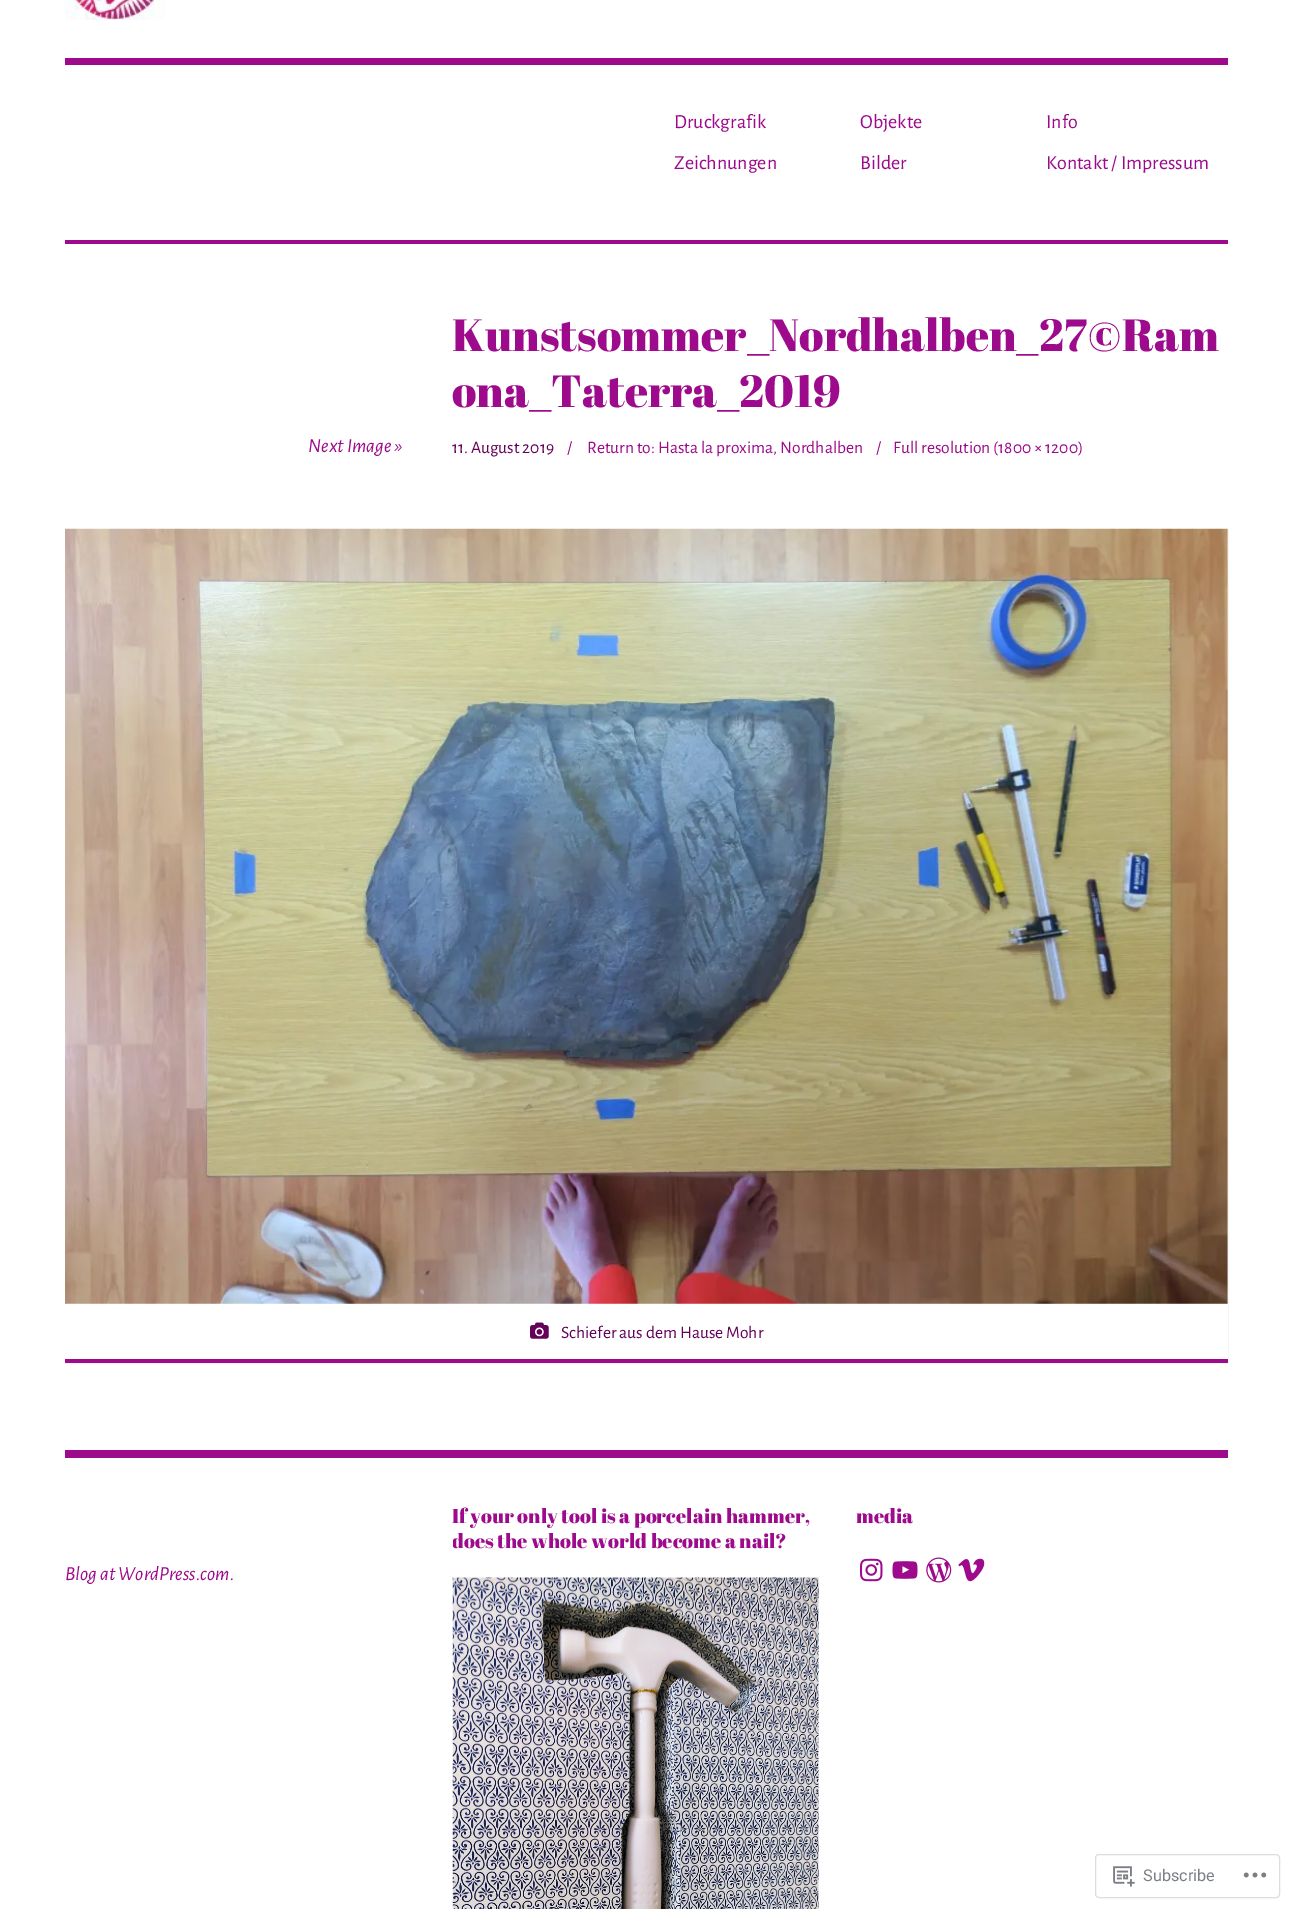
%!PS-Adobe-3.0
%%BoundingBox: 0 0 1292 1909
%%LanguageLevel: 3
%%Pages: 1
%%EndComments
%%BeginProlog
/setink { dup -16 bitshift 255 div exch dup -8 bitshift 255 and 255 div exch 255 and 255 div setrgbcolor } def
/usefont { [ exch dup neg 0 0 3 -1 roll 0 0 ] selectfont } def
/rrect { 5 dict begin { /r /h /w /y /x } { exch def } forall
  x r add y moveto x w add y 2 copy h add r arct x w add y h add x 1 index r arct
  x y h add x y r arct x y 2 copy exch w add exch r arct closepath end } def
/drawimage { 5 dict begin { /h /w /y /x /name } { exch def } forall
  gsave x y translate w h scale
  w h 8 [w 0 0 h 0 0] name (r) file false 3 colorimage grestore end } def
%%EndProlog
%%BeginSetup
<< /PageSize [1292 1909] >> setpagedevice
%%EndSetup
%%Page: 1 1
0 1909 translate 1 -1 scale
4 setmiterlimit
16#FFFFFF setink
0 0 1292 1909 rectfill
16#9D0A8C setink
65 58 1163 7 rectfill
(img1.raw) 65 0 100 20 drawimage
/AlegreyaSans-Regular 20 usefont
[
    [(Druckgrafik) 674 128]
    [(Zeichnungen) 674 169]
    [(Objekte) 860 128]
    [(Bilder) 860 169]
    [(Info) 1046 128]
    [(Kontakt / Impressum) 1046 169]
] { aload pop moveto show } forall
65 240 1163 4 rectfill
/AbrilFatface-Regular 45 usefont
452 351 moveto (Kunstsommer_Nordhalben_27©Ram) show
452 407 moveto (ona_Taterra_2019) show
/AlegreyaSans-Italic 20 usefont
308 452 moveto (Next Image ») show
/AlegreyaSans-Regular 17.5 usefont
16#640159 setink
452 453 moveto (11. August 2019) show
16#9D0A8C setink
[
    [(/) 567 453]
    [(Return to: Hasta la proxima, Nordhalben) 587 453]
    [(/) 876 453]
    [(Full resolution \(1800 × 1200\)) 893 453]
] { aload pop moveto show } forall
16#DDDDDD setink
65.5 529.5 1162 833 rectstroke
(img2.raw) 65 528 1163 776 drawimage
16#FFFFFF setink
65 1304 1163 55 rectfill
16#9D0A8C setink
65 1359 1163 4 rectfill
(img3.raw) 530 1322 19 17 drawimage
16#640159 setink
561 1338 moveto (Schiefer aus dem Hause Mohr) show
/AbrilFatface-Regular 20 usefont
16#9D0A8C setink
452 1523 moveto (If your only tool is a porcelain hammer,) show
gsave
453 1503 366 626 rectclip
452 1548 moveto (does the whole world become a nail?) show
grestore
(img4.raw) 452 1577 367 332 drawimage
856 1523 moveto (media) show
(img5.raw) 860 1558 23 24 drawimage
(img6.raw) 892 1561 26 18 drawimage
(img7.raw) 926 1557 26 26 drawimage
(img8.raw) 958 1558 27 24 drawimage
65 1450 1163 8 rectfill
/AlegreyaSans-Italic 20 usefont
65 1580 moveto (Blog at WordPress.com.) show
16#DDDDDF setink
1095.5 1854.5 184 43 3.5 rrect stroke
(img9.raw) 1113 1866 22 21 drawimage
/Roboto-Regular 16.25 usefont
16#7B7F85 setink
1143 1881 moveto (Subscribe) show
(img10.raw) 1243 1872 24 6 drawimage
showpage
%%EOF
